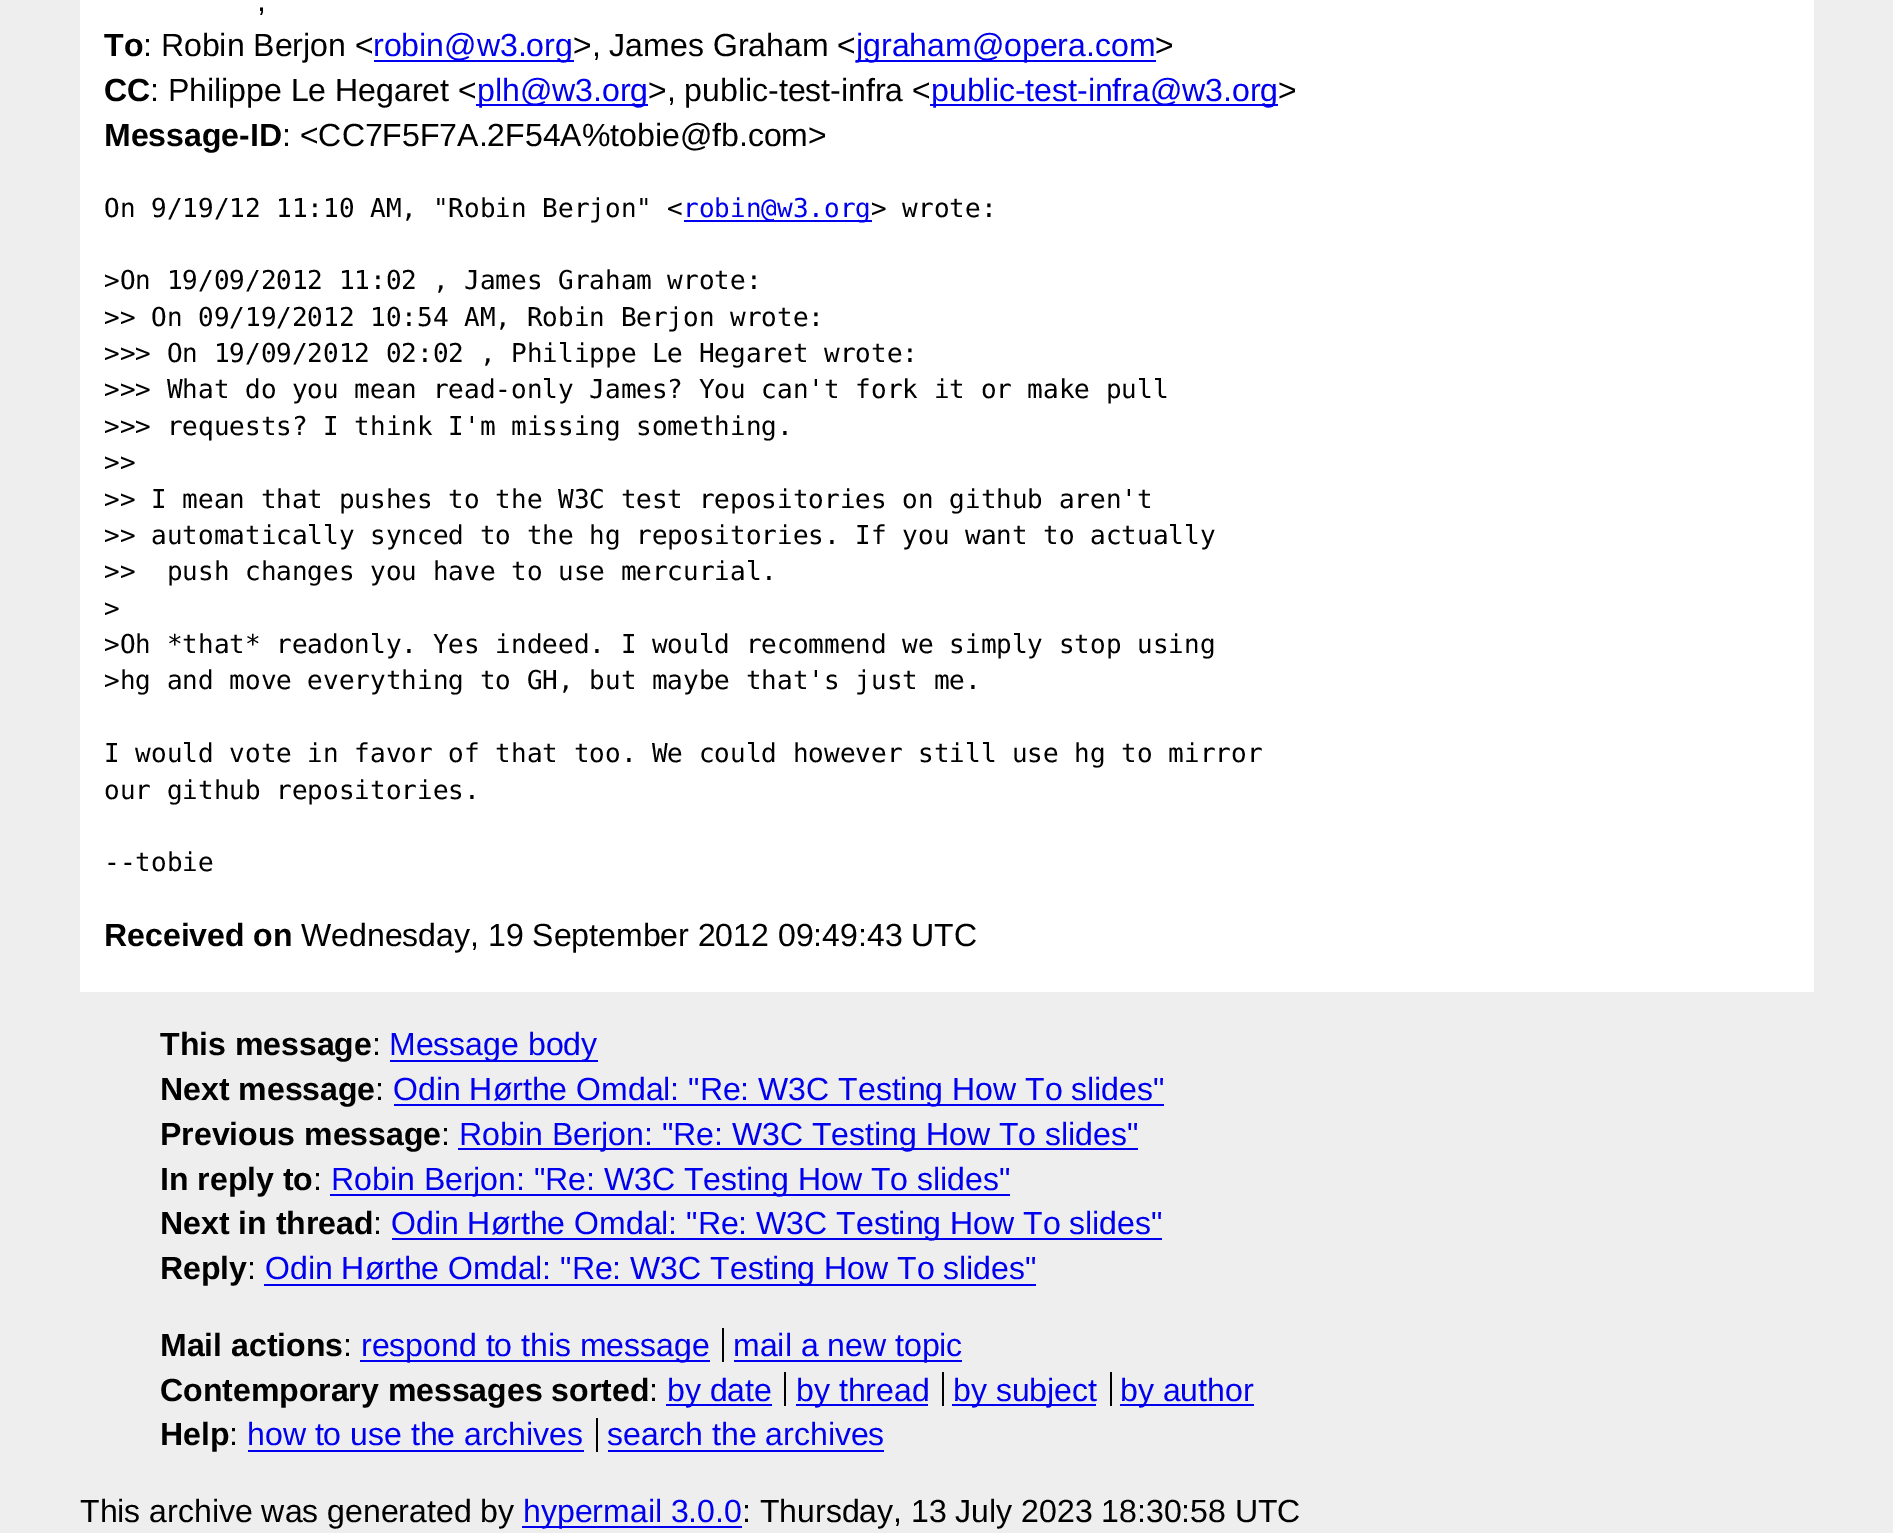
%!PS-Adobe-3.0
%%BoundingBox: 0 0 1893 1533
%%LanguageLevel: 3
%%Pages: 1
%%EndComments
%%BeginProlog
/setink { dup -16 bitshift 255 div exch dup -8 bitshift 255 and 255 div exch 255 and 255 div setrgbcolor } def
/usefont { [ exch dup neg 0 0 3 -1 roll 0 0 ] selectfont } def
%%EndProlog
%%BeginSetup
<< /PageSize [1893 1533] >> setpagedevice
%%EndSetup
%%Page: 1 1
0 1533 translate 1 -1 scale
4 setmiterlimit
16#EEEEEE setink
0 0 1893 1533 rectfill
16#FFFFFF setink
80 0 1734 992 rectfill
/LiberationSans-Regular 32 usefont
16#000000 setink
257 11 moveto (,) show
/LiberationSans-Bold 32 usefont
104 56 moveto (To) show
/LiberationSans-Regular 32 usefont
143 56 moveto (: Robin Berjon <) show
16#0000EE setink
374 60 200 2 rectfill
373 56 moveto (robin@w3.org) show
16#000000 setink
573 56 moveto (>, James Graham <) show
16#0000EE setink
856 60 300 2 rectfill
856 56 moveto (jgraham@opera.com) show
16#000000 setink
1155 56 moveto (>) show
/LiberationSans-Bold 32 usefont
104 101 moveto (CC) show
/LiberationSans-Regular 32 usefont
150 101 moveto (: Philippe Le Hegaret <) show
16#0000EE setink
476 104 172 2 rectfill
477 101 moveto (plh@w3.org) show
16#000000 setink
648 101 moveto (>, public-test-infra <) show
16#0000EE setink
930 104 348 2 rectfill
931 101 moveto (public-test-infra@w3.org) show
16#000000 setink
1278 101 moveto (>) show
/LiberationSans-Bold 32 usefont
104 146 moveto (Message-ID) show
/LiberationSans-Regular 32 usefont
282 146 moveto (: <CC7F5F7A.2F54A%tobie@fb.com>) show
/DejaVuSansMono-Regular 26 usefont
104 217 moveto (On 9/19/12 11:10 AM, "Robin Berjon" <) show
16#0000EE setink
684 220 188 2 rectfill
683 217 moveto (robin@w3.org) show
16#000000 setink
[
    [(> wrote:) 871 217]
    [(>On 19/09/2012 11:02 , James Graham wrote:) 104 289]
    [(>> On 09/19/2012 10:54 AM, Robin Berjon wrote:) 104 326]
    [(>>> On 19/09/2012 02:02 , Philippe Le Hegaret wrote:) 104 362]
    [(>>> What do you mean read-only James? You can't fork it or make pull) 104 398]
    [(>>> requests? I think I'm missing something.) 104 435]
    [(>>) 104 471]
    [(>> I mean that pushes to the W3C test repositories on github aren't) 104 508]
    [(>> automatically synced to the hg repositories. If you want to actually) 104 544]
    [(>>  push changes you have to use mercurial.) 104 580]
    [(>) 104 617]
    [(>Oh *that* readonly. Yes indeed. I would recommend we simply stop using) 104 653]
    [(>hg and move everything to GH, but maybe that's just me.) 104 689]
    [(I would vote in favor of that too. We could however still use hg to mirror) 104 762]
    [(our github repositories.) 104 799]
    [(--tobie) 104 871]
] { aload pop moveto show } forall
/LiberationSans-Bold 32 usefont
104 946 moveto (Received on) show
/LiberationSans-Regular 32 usefont
301 946 moveto (Wednesday, 19 September 2012 09:49:43 UTC) show
/LiberationSans-Bold 32 usefont
160 1055 moveto (This message) show
/LiberationSans-Regular 32 usefont
372 1055 moveto (:) show
16#0000EE setink
390 1060 208 2 rectfill
389 1055 moveto (Message body) show
/LiberationSans-Bold 32 usefont
16#000000 setink
160 1100 moveto (Next message) show
/LiberationSans-Regular 32 usefont
375 1100 moveto (:) show
16#0000EE setink
394 1104 770 2 rectfill
393 1100 moveto (Odin Hørthe Omdal: "Re: W3C Testing How To slides") show
/LiberationSans-Bold 32 usefont
16#000000 setink
160 1145 moveto (Previous message) show
/LiberationSans-Regular 32 usefont
441 1145 moveto (:) show
16#0000EE setink
458 1148 680 2 rectfill
459 1145 moveto (Robin Berjon: "Re: W3C Testing How To slides") show
/LiberationSans-Bold 32 usefont
16#000000 setink
160 1190 moveto (In reply to) show
/LiberationSans-Regular 32 usefont
313 1190 moveto (:) show
16#0000EE setink
330 1194 680 2 rectfill
331 1190 moveto (Robin Berjon: "Re: W3C Testing How To slides") show
/LiberationSans-Bold 32 usefont
16#000000 setink
160 1234 moveto (Next in thread) show
/LiberationSans-Regular 32 usefont
373 1234 moveto (:) show
16#0000EE setink
392 1238 770 2 rectfill
391 1234 moveto (Odin Hørthe Omdal: "Re: W3C Testing How To slides") show
/LiberationSans-Bold 32 usefont
16#000000 setink
160 1279 moveto (Reply) show
/LiberationSans-Regular 32 usefont
247 1279 moveto (:) show
16#0000EE setink
264 1284 772 2 rectfill
265 1279 moveto (Odin Hørthe Omdal: "Re: W3C Testing How To slides") show
/LiberationSans-Bold 32 usefont
16#000000 setink
160 1356 moveto (Mail actions) show
/LiberationSans-Regular 32 usefont
343 1356 moveto (:) show
16#0000EE setink
360 1360 350 2 rectfill
361 1356 moveto (respond to this message) show
734 1360 228 2 rectfill
733 1356 moveto (mail a new topic) show
16#000000 setink
722 1328 2 34 rectfill
/LiberationSans-Bold 32 usefont
160 1401 moveto (Contemporary messages sorted) show
/LiberationSans-Regular 32 usefont
649 1401 moveto (:) show
16#0000EE setink
666 1404 106 2 rectfill
667 1401 moveto (by date) show
796 1404 132 2 rectfill
796 1401 moveto (by thread) show
16#000000 setink
784 1372 2 34 rectfill
16#0000EE setink
952 1404 144 2 rectfill
953 1401 moveto (by subject) show
16#000000 setink
942 1372 2 34 rectfill
16#0000EE setink
1120 1404 134 2 rectfill
1120 1401 moveto (by author) show
16#000000 setink
1110 1372 2 34 rectfill
/LiberationSans-Bold 32 usefont
160 1445 moveto (Help) show
/LiberationSans-Regular 32 usefont
229 1445 moveto (:) show
16#0000EE setink
247 1445 moveto (how to use the archives) show
248 1450 336 2 rectfill
607 1445 moveto (search the archives) show
16#000000 setink
596 1418 2 34 rectfill
16#0000EE setink
608 1450 276 2 rectfill
16#000000 setink
80 1522 moveto (This archive was generated by) show
16#0000EE setink
522 1526 220 2 rectfill
523 1522 moveto (hypermail 3.0.0) show
16#000000 setink
742 1522 moveto (: Thursday, 13 July 2023 18:30:58 UTC) show
showpage
%%EOF
